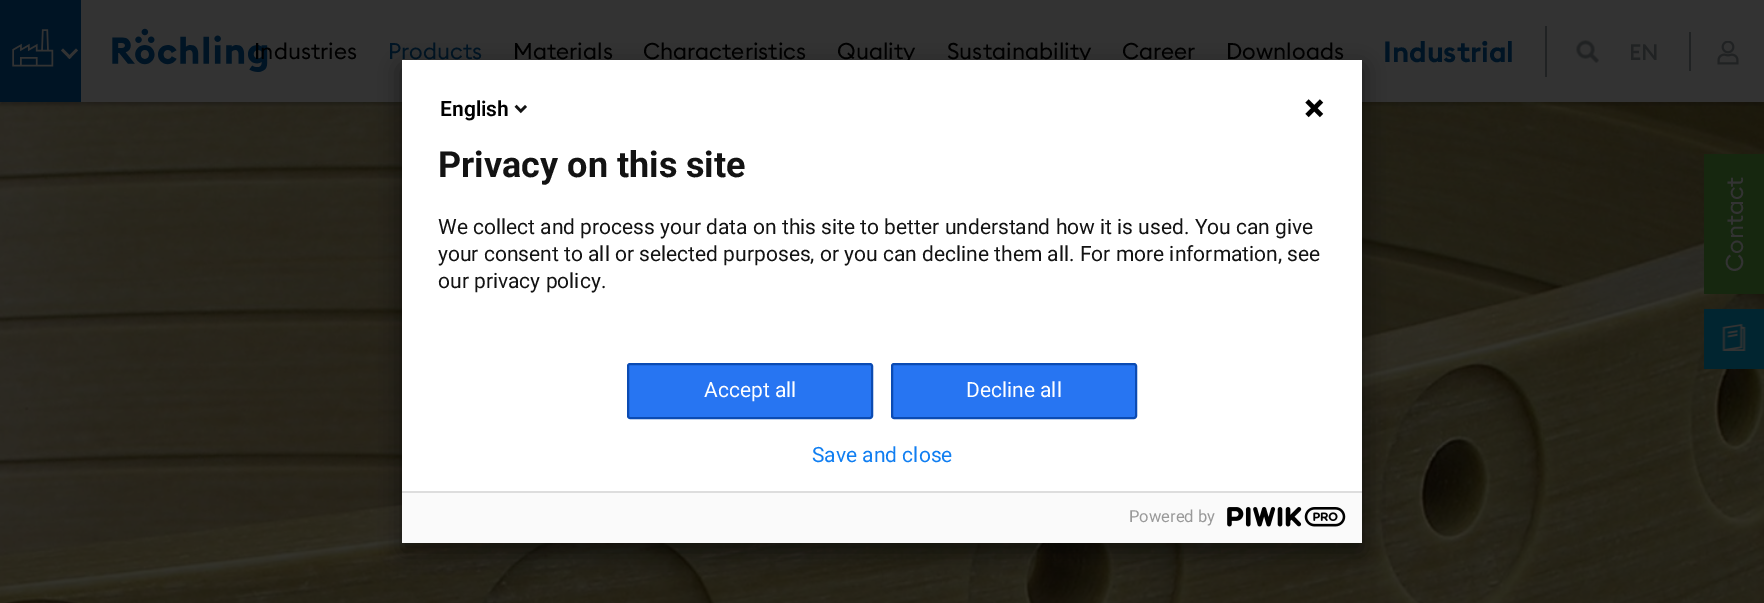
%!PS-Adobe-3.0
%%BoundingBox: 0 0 1764 603
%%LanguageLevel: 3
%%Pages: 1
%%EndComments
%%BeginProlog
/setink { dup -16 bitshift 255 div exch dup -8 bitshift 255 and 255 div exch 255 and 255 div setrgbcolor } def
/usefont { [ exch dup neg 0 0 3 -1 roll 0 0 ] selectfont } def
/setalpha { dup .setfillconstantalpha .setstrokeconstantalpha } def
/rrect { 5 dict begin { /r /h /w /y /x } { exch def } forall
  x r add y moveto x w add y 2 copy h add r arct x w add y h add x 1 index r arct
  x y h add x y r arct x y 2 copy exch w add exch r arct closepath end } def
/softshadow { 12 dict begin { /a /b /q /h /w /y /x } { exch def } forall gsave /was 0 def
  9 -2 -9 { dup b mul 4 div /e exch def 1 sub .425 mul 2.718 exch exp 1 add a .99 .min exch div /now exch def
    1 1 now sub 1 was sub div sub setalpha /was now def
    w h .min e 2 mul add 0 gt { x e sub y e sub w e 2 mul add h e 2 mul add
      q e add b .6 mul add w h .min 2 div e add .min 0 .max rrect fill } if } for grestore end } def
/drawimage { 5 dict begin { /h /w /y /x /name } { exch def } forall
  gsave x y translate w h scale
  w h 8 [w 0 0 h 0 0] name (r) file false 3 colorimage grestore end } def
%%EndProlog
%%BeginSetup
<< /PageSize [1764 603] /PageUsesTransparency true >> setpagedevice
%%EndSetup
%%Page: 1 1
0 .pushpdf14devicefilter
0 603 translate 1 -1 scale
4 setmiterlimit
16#FFFFFF setink
0 0 1764 603 rectfill
(img8.raw) 0 102 1764 501 drawimage
16#000000 setink
0 3 1764 102 0 1.5 0.2 softshadow
16#333333 setink
81 0 1683 102 rectfill
16#001424 setink
0 0 81 102 rectfill
(img1.raw) 12 29 42 38 drawimage
16#333333 setink
76 48.5 moveto 78 50.5 lineto 69.5 59 lineto 67.5 57 lineto closepath fill
63 48.5 moveto 71.5 57 lineto 69.5 59 lineto 61 50.5 lineto closepath fill
(img2.raw) 112 28 156 44 drawimage
/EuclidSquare-Regular 22.5 usefont
16#000000 setink
254 59 moveto (Industries) show
16#001424 setink
388 59 moveto (Products) show
16#000000 setink
[
    [(Materials) 513 59]
    [(Characteristics) 643 59]
    [(Quality) 837 59]
    [(Sustainability) 947 59]
    [(Career) 1122 59]
    [(Downloads) 1226 59]
] { aload pop moveto show } forall
16#202223 setink
1545 26 2 51 rectfill
/EuclidSquare-SemiBold 28.75 usefont
16#001424 setink
1383 62 moveto (Industrial) show
(img3.raw) 1576 40 23 23 drawimage
/EuclidSquare-Medium 22 usefont
16#202223 setink
1629 60 moveto (EN) show
1689 32 2 39 rectfill
(img4.raw) 1717 41 22 24 drawimage
16#000000 setink
402 68 960 483 0 11 0.5 softshadow
16#FFFFFF setink
402 60 960 431 rectfill
/Roboto-SemiBold 21 usefont
16#000000 setink
440 116 moveto (English) show
(img5.raw) 514 104 13 10 drawimage
(img6.raw) 1305 99 19 19 drawimage
/Roboto-Bold 36 usefont
16#131313 setink
438 177 moveto (Privacy on this site) show
/Roboto-Regular 21 usefont
[
    [(We collect and process your data on this site to better understand how it is used. You can give) 438 234]
    [(your consent to all or selected purposes, or you can decline them all. For more information, see) 438 261]
    [(our privacy policy.) 438 288]
] { aload pop moveto show } forall
16#2775F2 setink
628 364 244 54 2 rrect gsave fill grestore
16#0B4BB3 setink
2 setlinewidth
stroke
16#FFFFFF setink
704 397 moveto (Accept all) show
16#2775F2 setink
892 364 244 54 2 rrect gsave fill grestore
16#0B4BB3 setink
stroke
16#FFFFFF setink
966 397 moveto (Decline all) show
16#107EF1 setink
812 462 moveto (Save and close) show
16#FAFAFA setink
402 493 960 50 rectfill
16#DDDDDD setink
402 491 960 2 rectfill
/Roboto-Regular 16.5 usefont
16#999999 setink
1129 522 moveto (Powered by) show
(img7.raw) 1227 507 119 20 drawimage
16#16270F setink
1704 154 60 140 rectfill
/EuclidSquare-Regular 24 usefont
16#333333 setink
gsave 1743 272 translate -90 rotate 0 0 moveto (Contact) show grestore
16#012530 setink
1704 309 60 60 rectfill
(img9.raw) 1722 324 24 27 drawimage
.poppdf14devicefilter showpage
%%EOF
